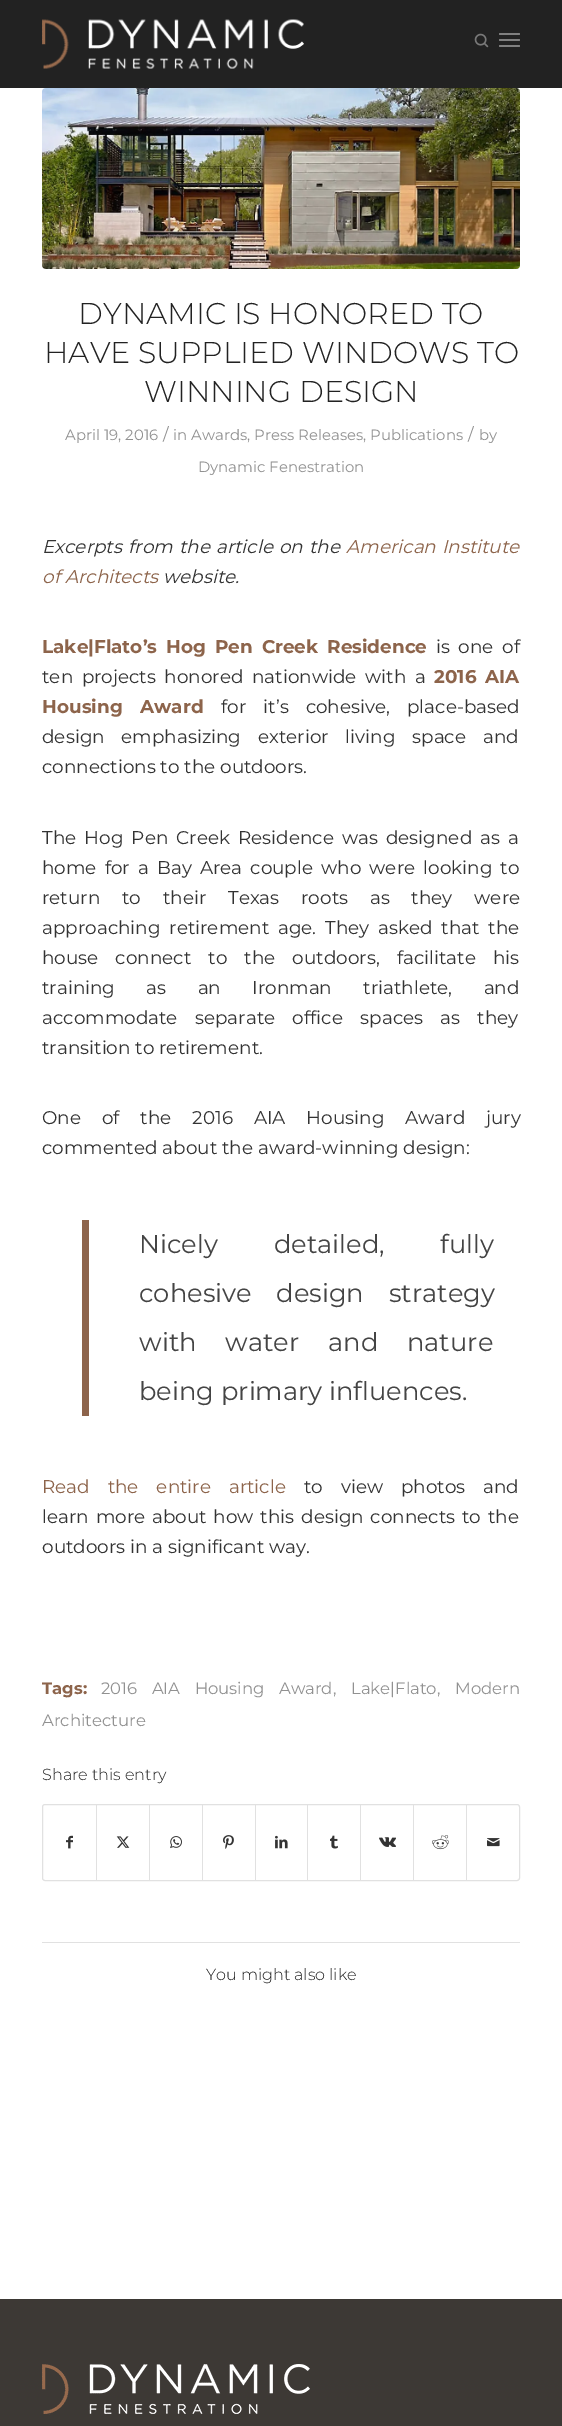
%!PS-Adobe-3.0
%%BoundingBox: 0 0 562 2426
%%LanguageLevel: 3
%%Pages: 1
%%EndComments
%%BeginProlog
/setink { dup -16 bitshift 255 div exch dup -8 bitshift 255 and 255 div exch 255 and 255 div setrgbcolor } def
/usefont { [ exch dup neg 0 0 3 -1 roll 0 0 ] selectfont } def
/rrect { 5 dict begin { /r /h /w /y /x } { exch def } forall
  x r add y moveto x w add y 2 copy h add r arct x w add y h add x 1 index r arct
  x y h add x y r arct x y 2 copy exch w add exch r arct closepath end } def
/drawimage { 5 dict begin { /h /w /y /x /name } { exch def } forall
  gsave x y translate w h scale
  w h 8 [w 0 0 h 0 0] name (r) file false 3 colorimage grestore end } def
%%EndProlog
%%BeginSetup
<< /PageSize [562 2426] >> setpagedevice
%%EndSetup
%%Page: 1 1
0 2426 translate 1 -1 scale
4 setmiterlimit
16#FFFFFF setink
0 0 562 2426 rectfill
16#222222 setink
0 0 562 88 rectfill
(img1.raw) 42 19 262 50 drawimage
(img2.raw) 474 33 15 15 drawimage
16#808080 setink
499 39 21 2 1 rrect fill
499 33 21 2 1 rrect fill
499 45 21 2 1 rrect fill
(img3.raw) 42 88 478 181 drawimage
/Montserrat-Light 30 usefont
16#222222 setink
[
    [(DYNAMIC IS HONORED TO) 78 324]
    [(HAVE SUPPLIED WINDOWS TO) 44 363]
    [(WINNING DESIGN) 144 402]
] { aload pop moveto show } forall
/Montserrat-Regular 14.9 usefont
16#919191 setink
65 440 moveto (April 19, 2016) show
/Montserrat-Regular 16.5 usefont
163 440 moveto (/) show
/Montserrat-Regular 14.9 usefont
173 440 moveto (in Awards, Press Releases, Publications) show
/Montserrat-Regular 16.5 usefont
468 440 moveto (/) show
/Montserrat-Regular 14.9 usefont
479 440 moveto (by) show
198 472 moveto (Dynamic Fenestration) show
/Montserrat-Italic 18.4 usefont
16#333333 setink
42 553 moveto 1.25 0 32 (Excerpts from the article on the) widthshow
16#8D644B setink
346 553 moveto 1 0 32 (American Institute) widthshow
42 583 moveto (of Architects) show
16#333333 setink
163 583 moveto (website.) show
/Montserrat-Bold 18.4 usefont
16#8D644B setink
42 653 moveto 3.75 0 32 (Lake|Flato’s Hog Pen Creek Residence) widthshow
/Montserrat-Regular 18.4 usefont
16#333333 setink
436 653 moveto 3.75 0 32 (is one of) widthshow
42 683 moveto 3.75 0 32 (ten projects honored nationwide with a) widthshow
/Montserrat-Bold 18.4 usefont
16#8D644B setink
434 683 moveto 3.75 0 32 (2016 AIA) widthshow
42 713 moveto 12.25 0 32 (Housing Award) widthshow
/Montserrat-Regular 18.4 usefont
16#333333 setink
221 713 moveto 12.25 0 32 (for it’s cohesive, place-based) widthshow
42 743 moveto 12 0 32 (design emphasizing exterior living space and) widthshow
42 773 moveto (connections to the outdoors.) show
42 844 moveto 3.25 0 32 (The Hog Pen Creek Residence was designed as a) widthshow
42 874 moveto 3.25 0 32 (home for a Bay Area couple who were looking to) widthshow
42 904 moveto 17 0 32 (return to their Texas roots as they were) widthshow
42 934 moveto 4 0 32 (approaching retirement age. They asked that the) widthshow
42 964 moveto 12.25 0 32 (house connect to the outdoors, facilitate his) widthshow
42 994 moveto 26.5 0 32 (training as an Ironman triathlete, and) widthshow
42 1024 moveto 12.5 0 32 (accommodate separate office spaces as they) widthshow
42 1054 moveto (transition to retirement.) show
42 1124 moveto 16 0 32 (One of the 2016 AIA Housing Award jury) widthshow
42 1154 moveto (commented about the award-winning design:) show
16#8D644B setink
82 1220 7 196 rectfill
/Montserrat-Regular 25.75 usefont
16#444444 setink
139 1253 moveto 49 0 32 (Nicely detailed, fully) widthshow
139 1302 moveto 18 0 32 (cohesive design strategy) widthshow
139 1351 moveto 22 0 32 (with water and nature) widthshow
139 1400 moveto (being primary influences.) show
/Montserrat-Regular 18.4 usefont
16#8D644B setink
42 1493 moveto 13 0 32 (Read the entire article) widthshow
16#333333 setink
304 1493 moveto 13 0 32 (to view photos and) widthshow
42 1523 moveto 2 0 32 (learn more about how this design connects to the) widthshow
42 1553 moveto (outdoors in a significant way.) show
/Montserrat-Bold 16.5 usefont
16#8D644B setink
42 1694 moveto (Tags:) show
/Montserrat-Regular 16.5 usefont
16#919191 setink
101 1694 moveto 10 0 32 (2016 AIA Housing Award) widthshow
[
    [(,) 333 1694]
    [(Lake|Flato,) 351 1694]
    [(Modern) 455 1694]
    [(Architecture) 42 1726]
] { aload pop moveto show } forall
/Montserrat-Light 16 usefont
16#222222 setink
42 1780 moveto (Share this entry) show
16#E1E1E1 setink
42.5 1804.5 477 76 2.5 rrect stroke
(img4.raw) 66 1835 7 14 drawimage
96 1805 1 75 rectfill
(img5.raw) 116 1836 14 12 drawimage
149 1805 1 75 rectfill
(img6.raw) 170 1836 12 13 drawimage
202 1805 1 75 rectfill
(img7.raw) 223 1835 11 14 drawimage
255 1805 1 75 rectfill
(img8.raw) 275 1835 13 14 drawimage
307 1805 1 75 rectfill
(img9.raw) 330 1835 8 14 drawimage
360 1805 1 75 rectfill
(img10.raw) 379 1837 17 10 drawimage
413 1805 1 75 rectfill
(img11.raw) 432 1835 17 15 drawimage
466 1805 1 75 rectfill
(img12.raw) 487 1838 13 9 drawimage
42 1942 478 1 rectfill
16#222222 setink
206 1980 moveto (You might also like) show
16#3D3935 setink
0 2299 562 127 rectfill
(img13.raw) 42 2364 268 51 drawimage
showpage
%%EOF
